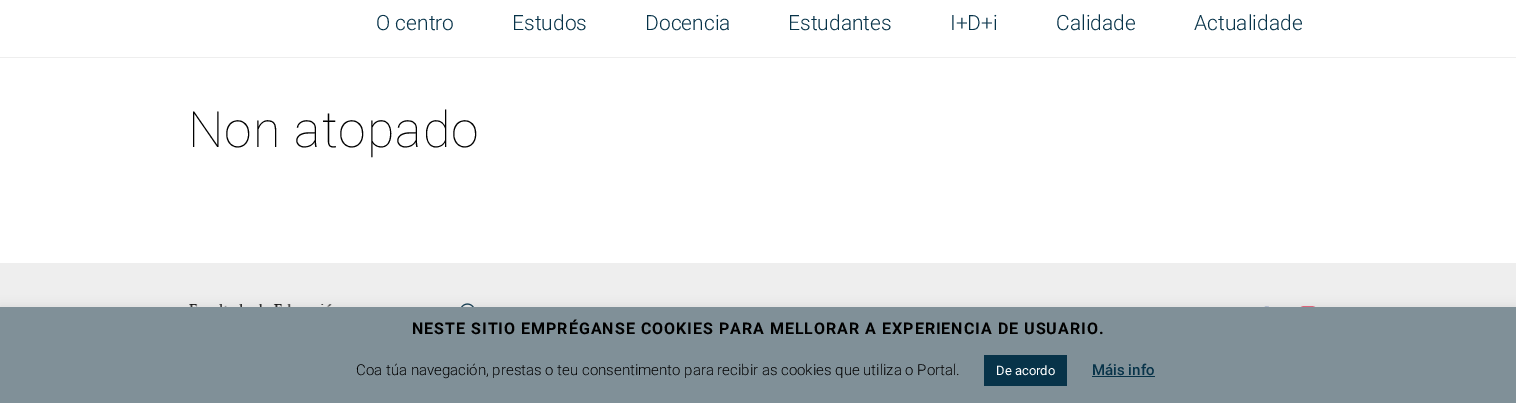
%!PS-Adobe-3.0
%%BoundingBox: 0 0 1516 403
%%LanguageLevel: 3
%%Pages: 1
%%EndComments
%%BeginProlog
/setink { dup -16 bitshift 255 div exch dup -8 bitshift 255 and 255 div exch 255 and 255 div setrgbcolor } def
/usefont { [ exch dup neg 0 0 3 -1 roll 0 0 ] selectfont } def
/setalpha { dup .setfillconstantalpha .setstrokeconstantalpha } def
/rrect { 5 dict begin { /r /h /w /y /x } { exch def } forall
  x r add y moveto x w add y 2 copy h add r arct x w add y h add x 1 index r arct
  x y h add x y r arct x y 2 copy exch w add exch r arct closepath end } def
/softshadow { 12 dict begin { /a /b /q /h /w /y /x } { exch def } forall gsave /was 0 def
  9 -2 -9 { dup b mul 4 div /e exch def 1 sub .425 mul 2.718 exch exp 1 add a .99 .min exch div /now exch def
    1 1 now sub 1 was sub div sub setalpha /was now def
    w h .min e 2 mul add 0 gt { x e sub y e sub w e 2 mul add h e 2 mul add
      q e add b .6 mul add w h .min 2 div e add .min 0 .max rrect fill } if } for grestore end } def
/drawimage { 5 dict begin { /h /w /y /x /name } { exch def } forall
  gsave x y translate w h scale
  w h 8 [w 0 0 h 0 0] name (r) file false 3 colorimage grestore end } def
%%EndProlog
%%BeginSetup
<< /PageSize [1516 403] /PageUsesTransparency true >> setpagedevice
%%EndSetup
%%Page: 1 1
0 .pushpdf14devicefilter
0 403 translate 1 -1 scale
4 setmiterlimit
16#FFFFFF setink
0 0 1516 403 rectfill
16#EEEEEE setink
0 57 1516 1 rectfill
/Roboto-Light 21 usefont
16#073349 setink
[
    [(O centro) 376 30]
    [(Estudos) 512 30]
    [(Docencia) 645 30]
    [(Estudantes) 788 30]
    [(I+D+i) 950 30]
    [(Calidade) 1056 30]
    [(Actualidade) 1194 30]
] { aload pop moveto show } forall
/Roboto-Thin 50 usefont
16#000000 setink
188 147 moveto 1 0 (Non atopado) ashow
16#EEEEEE setink
0 263 1516 44 rectfill
(img1.raw) 189 304 143 3 drawimage
(img2.raw) 461 303 13 4 drawimage
(img3.raw) 1264 306 5 1 drawimage
(img4.raw) 1300 306 16 1 drawimage
16#ACABAB setink
0 306 1516 96 0 5 0.3 softshadow
16#809098 setink
0 307 1516 96 rectfill
/Roboto-Bold 16 usefont
16#000000 setink
412 334 moveto 1 0 (NESTE SITIO EMPRÉGANSE COOKIES PARA MELLORAR A EXPERIENCIA DE USUARIO.) ashow
/Roboto-Light 15 usefont
356 375 moveto (Coa túa navegación, prestas o teu consentimento para recibir as cookies que utiliza o Portal.) show
16#073349 setink
984 355 83 31 rectfill
/Roboto-Regular 13 usefont
16#FFFFFF setink
996 375 moveto (De acordo) show
/Roboto-Medium 15 usefont
16#073349 setink
1092 375 moveto (Máis info) show
1092 376 63 1 rectfill
.poppdf14devicefilter showpage
%%EOF
